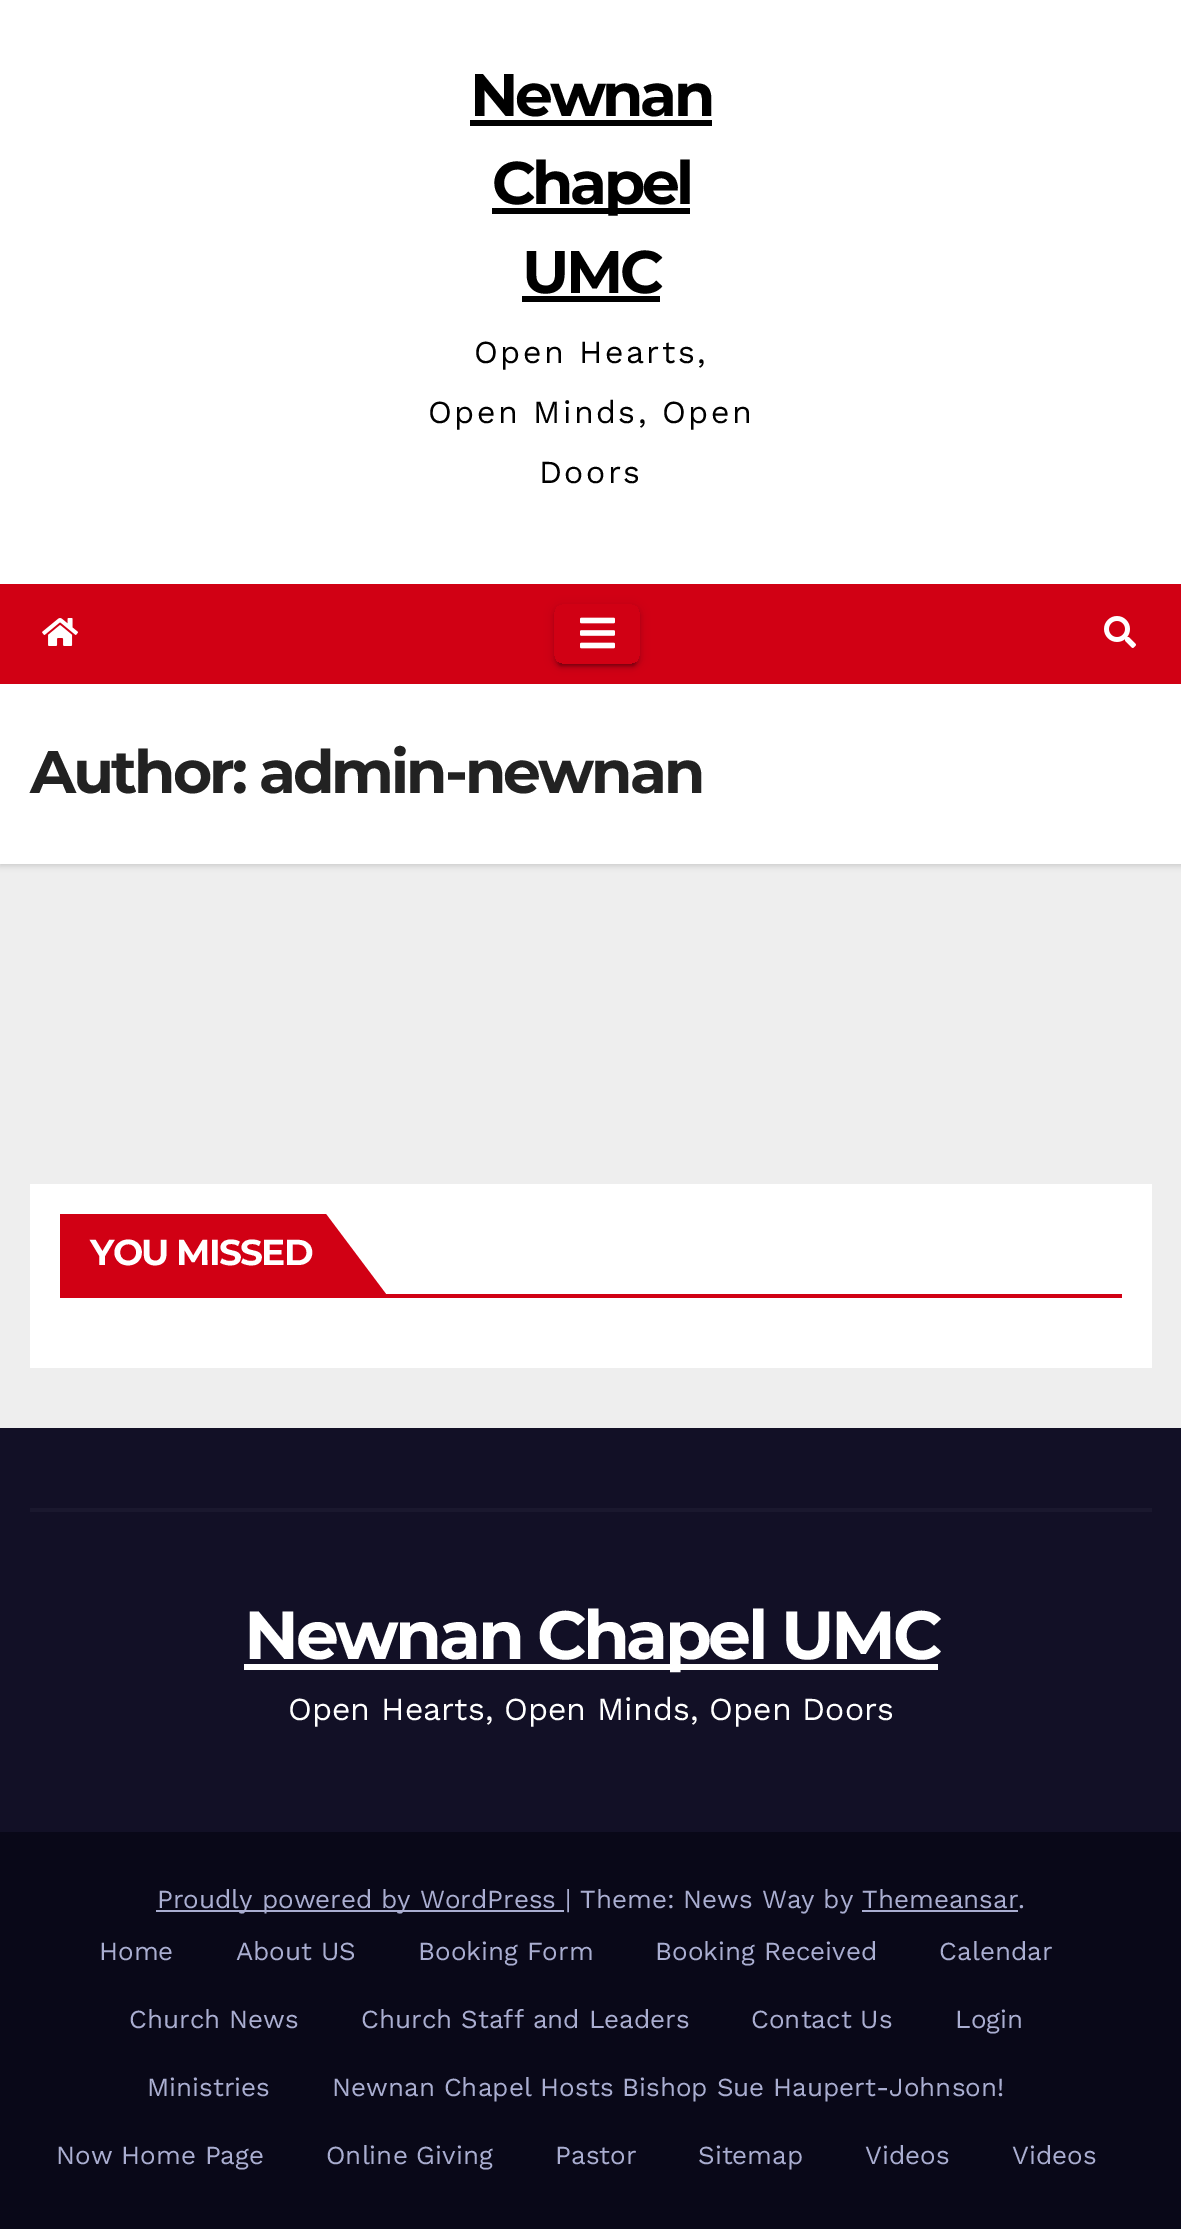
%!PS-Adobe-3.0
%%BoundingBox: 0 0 1181 2229
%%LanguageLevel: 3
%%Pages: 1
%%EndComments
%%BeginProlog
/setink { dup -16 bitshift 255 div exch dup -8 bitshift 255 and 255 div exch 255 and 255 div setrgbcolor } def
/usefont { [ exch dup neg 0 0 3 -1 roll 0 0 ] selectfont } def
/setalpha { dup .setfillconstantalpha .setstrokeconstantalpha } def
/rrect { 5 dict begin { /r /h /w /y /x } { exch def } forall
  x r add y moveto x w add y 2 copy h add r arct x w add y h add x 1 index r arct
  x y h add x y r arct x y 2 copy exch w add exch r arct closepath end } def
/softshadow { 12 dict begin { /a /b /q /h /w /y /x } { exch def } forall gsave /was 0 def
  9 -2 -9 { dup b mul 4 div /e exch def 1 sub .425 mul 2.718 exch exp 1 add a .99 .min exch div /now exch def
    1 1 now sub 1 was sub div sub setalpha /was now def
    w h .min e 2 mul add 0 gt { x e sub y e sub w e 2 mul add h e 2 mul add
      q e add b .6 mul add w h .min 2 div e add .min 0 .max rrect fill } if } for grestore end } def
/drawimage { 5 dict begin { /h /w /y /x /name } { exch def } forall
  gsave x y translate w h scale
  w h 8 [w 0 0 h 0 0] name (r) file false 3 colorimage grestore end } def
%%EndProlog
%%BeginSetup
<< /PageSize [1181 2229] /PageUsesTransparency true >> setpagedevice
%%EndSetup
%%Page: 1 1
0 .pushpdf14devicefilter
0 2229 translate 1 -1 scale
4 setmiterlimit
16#EEEEEE setink
0 0 1181 2229 rectfill
16#FFFFFF setink
0 0 1181 584 rectfill
/Montserrat-Bold 60 usefont
16#000000 setink
470 116 moveto -3.4 0 (Newnan) ashow
470 120 242 6 rectfill
492 208 198 6 rectfill
492 204 moveto -3.4 0 (Chapel) ashow
522 293 moveto -3.4 0 (UMC) ashow
522 296 138 6 rectfill
/WorkSans-Regular 32 usefont
474 363 moveto 2.4 0 (Open Hearts,) ashow
428 423 moveto 2.4 0 (Open Minds, Open) ashow
539 483 moveto 2.4 0 (Doors) ashow
0 686 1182 180 0 3 0.15 softshadow
16#D10014 setink
0 584 1181 100 rectfill
(img1.raw) 42 618 36 28 drawimage
gsave
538 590 moveto 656 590 lineto 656 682 lineto 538 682 lineto closepath 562 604 moveto 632 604 lineto 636.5 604 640 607.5 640 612 curveto 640 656 lineto 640 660.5 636.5 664 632 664 curveto 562 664 lineto 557.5 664 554 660.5 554 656 curveto 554 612 lineto 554 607.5 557.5 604 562 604 curveto closepath eoclip newpath
16#000000 setink
554 606 86 60 8 5 0.12 softshadow
grestore
gsave
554 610 moveto 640 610 lineto 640 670 lineto 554 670 lineto closepath 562 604 moveto 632 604 lineto 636.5 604 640 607.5 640 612 curveto 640 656 lineto 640 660.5 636.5 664 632 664 curveto 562 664 lineto 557.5 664 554 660.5 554 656 curveto 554 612 lineto 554 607.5 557.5 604 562 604 curveto closepath eoclip newpath
16#000000 setink
558 614 78 52 4 1 0.2 softshadow
grestore
gsave
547 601 moveto 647 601 lineto 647 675 lineto 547 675 lineto closepath 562 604 moveto 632 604 lineto 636.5 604 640 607.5 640 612 curveto 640 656 lineto 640 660.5 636.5 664 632 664 curveto 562 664 lineto 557.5 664 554 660.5 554 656 curveto 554 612 lineto 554 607.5 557.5 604 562 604 curveto closepath eoclip newpath
16#000000 setink
554 608 86 60 8 2 0.14 softshadow
grestore
(img2.raw) 580 617 35 32 drawimage
(img3.raw) 1104 616 32 32 drawimage
16#FFFFFF setink
0 684 1181 180 rectfill
/Montserrat-Bold 60 usefont
16#222222 setink
30 793 moveto -3 0 (Author: admin-newnan) ashow
[
    [30 1184 1122 184 16#FFFFFF]
    [60 1294 1062 4 16#D10014]
    [60 1214 266 80 16#D10014]
] { aload pop setink rectfill } forall
/Montserrat-Bold 36 usefont
16#FFFFFF setink
90 1265 moveto -1.75 0 (YOU MISSED) ashow
16#D10014 setink
326 1294 moveto 326 1214 lineto 386 1294 lineto closepath fill
[
    [0 1428 1181 404 16#121026]
    [30 1508 1122 4 16#1A182E]
    [244 1664 694 6 16#FFFFFF]
] { aload pop setink rectfill } forall
/Montserrat-Bold 68 usefont
244 1659 moveto -3.4 0 (Newnan Chapel UMC) ashow
/WorkSans-Regular 32 usefont
288 1720 moveto (Open Hearts, Open Minds, Open Doors) show
16#090818 setink
0 1832 1181 397 rectfill
16#AAAED1 setink
156 1910 408 2 rectfill
/WorkSans-Regular 26 usefont
157 1908 moveto (Proudly powered by WordPress | Theme: News Way by Themeansar.) show
862 1910 156 2 rectfill
[
    [(Home) 99 1960]
    [(About US) 236 1960]
    [(Booking Form) 418 1960]
    [(Booking Received) 655 1960]
    [(Calendar) 939 1960]
    [(Church News) 129 2028]
    [(Church Staff and Leaders) 361 2028]
    [(Contact Us) 751 2028]
    [(Login) 955 2028]
    [(Ministries) 147 2096]
    [(Newnan Chapel Hosts Bishop Sue Haupert-Johnson!) 332 2096]
    [(Now Home Page) 56 2164]
    [(Online Giving) 326 2164]
    [(Pastor) 555 2164]
    [(Sitemap) 698 2164]
    [(Videos) 865 2164]
    [(Videos) 1012 2164]
] { aload pop moveto show } forall
.poppdf14devicefilter showpage
%%EOF
